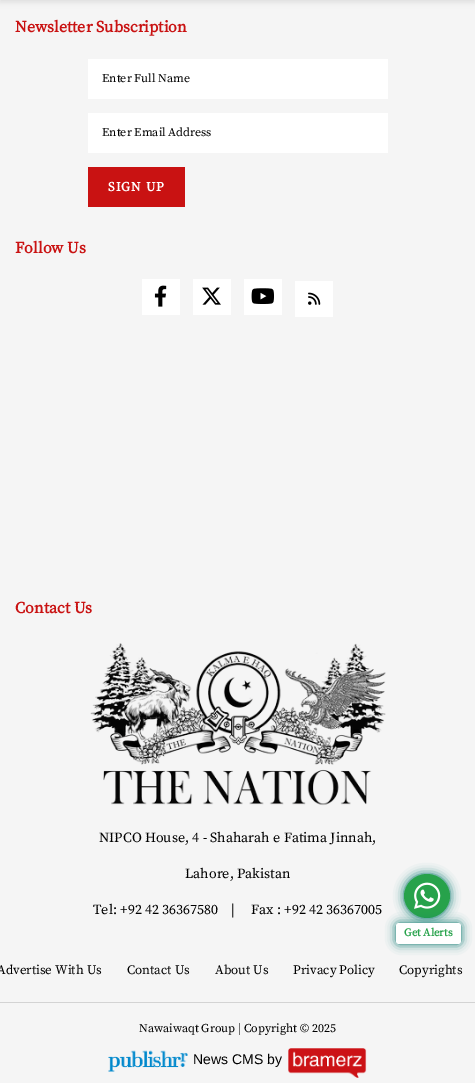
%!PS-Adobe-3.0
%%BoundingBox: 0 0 475 1083
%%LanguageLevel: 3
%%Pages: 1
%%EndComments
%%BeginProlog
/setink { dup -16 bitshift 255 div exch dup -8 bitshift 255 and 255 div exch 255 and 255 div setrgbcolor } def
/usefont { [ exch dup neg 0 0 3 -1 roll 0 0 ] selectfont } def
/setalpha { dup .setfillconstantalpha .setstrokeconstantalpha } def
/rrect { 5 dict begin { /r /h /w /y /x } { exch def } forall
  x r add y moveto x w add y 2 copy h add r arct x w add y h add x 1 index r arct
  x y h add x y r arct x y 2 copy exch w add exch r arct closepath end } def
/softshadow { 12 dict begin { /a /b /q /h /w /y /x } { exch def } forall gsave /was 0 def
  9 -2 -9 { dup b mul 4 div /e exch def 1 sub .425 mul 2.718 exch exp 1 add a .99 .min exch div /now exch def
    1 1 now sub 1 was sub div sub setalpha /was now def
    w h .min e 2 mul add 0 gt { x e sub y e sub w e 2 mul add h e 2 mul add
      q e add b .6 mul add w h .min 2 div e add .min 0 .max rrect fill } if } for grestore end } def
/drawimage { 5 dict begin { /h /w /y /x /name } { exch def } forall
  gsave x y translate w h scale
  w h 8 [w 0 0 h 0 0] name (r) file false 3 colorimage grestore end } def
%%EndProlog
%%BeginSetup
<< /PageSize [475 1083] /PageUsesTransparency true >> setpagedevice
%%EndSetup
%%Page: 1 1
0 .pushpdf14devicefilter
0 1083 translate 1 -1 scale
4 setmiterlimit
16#F5F5F5 setink
0 0 475 1083 rectfill
16#000000 setink
0 -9 475 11 0 3 0.1 softshadow
/SourceSerifPro-Bold 16 usefont
16#C91212 setink
15 32 moveto (Newsletter Subscription) show
16#FFFFFF setink
88 59 300 40 rectfill
/SourceSerifPro-Regular 12 usefont
16#000000 setink
102 82 moveto (Enter Full Name) show
16#FFFFFF setink
88 113 300 40 rectfill
16#000000 setink
102 136 moveto (Enter Email Address) show
16#C91212 setink
88 167 97 40 rectfill
/SourceSerifPro-Bold 13 usefont
16#FFFFFF setink
108 191 moveto 1 0 (SIGN UP) ashow
/SourceSerifPro-Bold 16 usefont
16#C91212 setink
15 253 moveto (Follow Us) show
16#FFFFFF setink
142 279 38 36 rectfill
(img1.raw) 154 285 13 22 drawimage
193 279 38 36 rectfill
(img2.raw) 202 287 19 18 drawimage
244 279 38 36 rectfill
(img3.raw) 251 288 23 16 drawimage
295 281 38 36 rectfill
(img4.raw) 308 292 13 13 drawimage
16#C91212 setink
15 613 moveto (Contact Us) show
(img5.raw) 90 643 296 163 drawimage
/SourceSerifPro-Regular 14 usefont
16#000000 setink
[
    [(NIPCO House, 4 - Shaharah e Fatima Jinnah,) 99 842]
    [(Lahore, Pakistan) 185 878]
    [(Tel: +92 42 36367580    |     Fax : +92 42 36367005) 93 914]
] { aload pop moveto show } forall
/SourceSerifPro-Regular 13 usefont
[
    [(Advertise With Us) -3 974]
    [(Contact Us) 127 974]
    [(About Us) 215 974]
    [(Privacy Policy) 293 974]
    [(Copyrights) 399 974]
] { aload pop moveto show } forall
16#D3D3D3 setink
0 1002 475 1 rectfill
/SourceSerifPro-Regular 12 usefont
16#000000 setink
139 1032 moveto (Nawaiwaqt Group | Copyright © 2025) show
(img6.raw) 108 1050 80 22 drawimage
/LiberationSans-Regular 14 usefont
193 1064 moveto (News CMS by) show
(img7.raw) 288 1048 79 30 drawimage
16#007468 setink
404 874 46 44 22 5 1 softshadow
16#27A24B setink
427 874 moveto 439.5 874 450 884 450 896 curveto 450 908 439.5 918 427 918 curveto 414.5 918 404 908 404 896 curveto 404 884 414.5 874 427 874 curveto closepath fill
(img8.raw) 414 882 27 27 drawimage
16#007468 setink
396 923 65 21 3 5 1 softshadow
16#FFFFFF setink
396 923 65 21 3 rrect fill
/SourceSerifPro-Bold 11 usefont
16#27A24B setink
404 936 moveto (Get Alerts) show
.poppdf14devicefilter showpage
%%EOF
